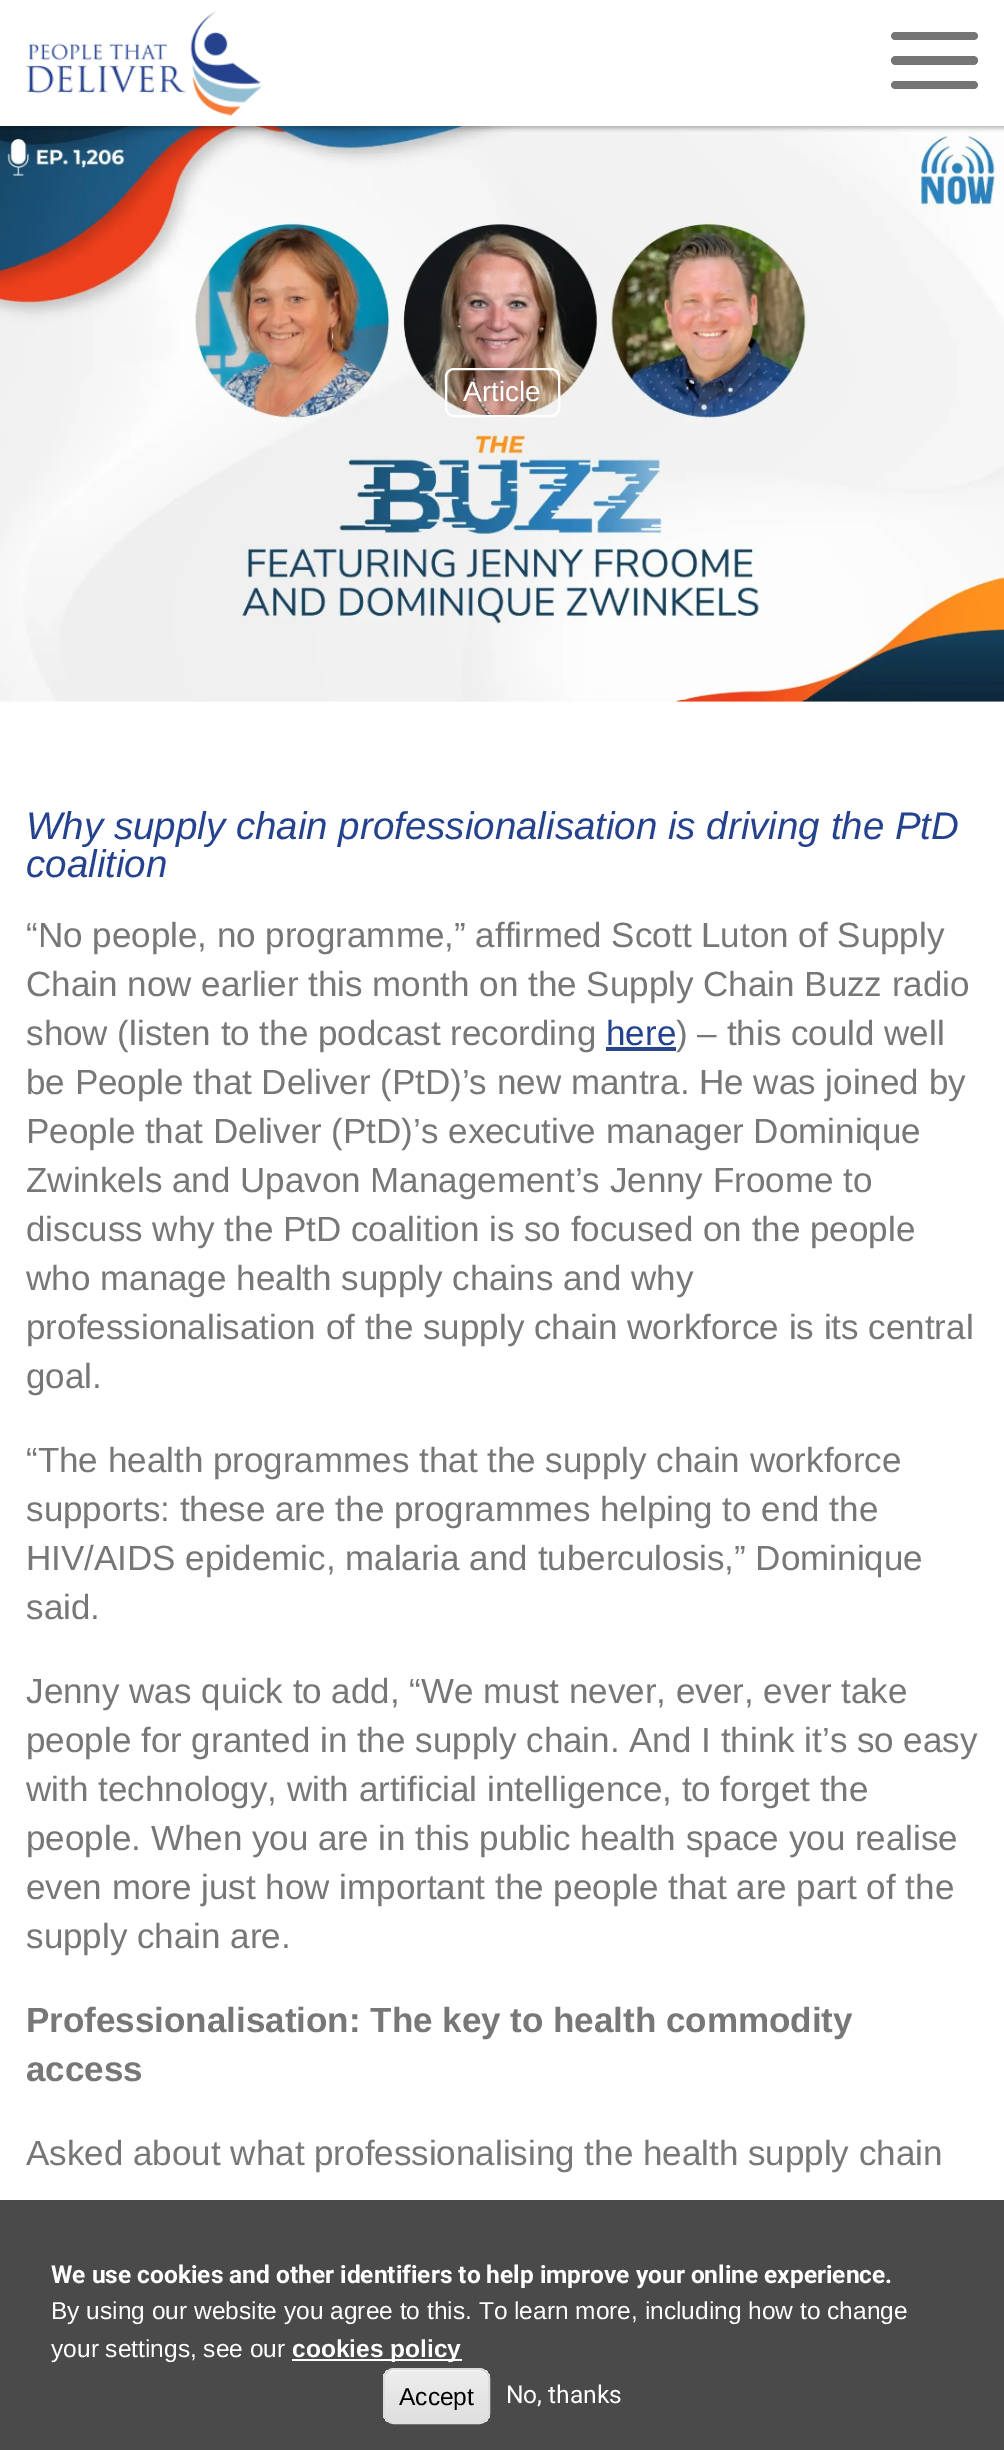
%!PS-Adobe-3.0
%%BoundingBox: 0 0 1004 2450
%%LanguageLevel: 3
%%Pages: 1
%%EndComments
%%BeginProlog
/setink { dup -16 bitshift 255 div exch dup -8 bitshift 255 and 255 div exch 255 and 255 div setrgbcolor } def
/usefont { [ exch dup neg 0 0 3 -1 roll 0 0 ] selectfont } def
/setalpha { dup .setfillconstantalpha .setstrokeconstantalpha } def
/rrect { 5 dict begin { /r /h /w /y /x } { exch def } forall
  x r add y moveto x w add y 2 copy h add r arct x w add y h add x 1 index r arct
  x y h add x y r arct x y 2 copy exch w add exch r arct closepath end } def
/softshadow { 12 dict begin { /a /b /q /h /w /y /x } { exch def } forall gsave /was 0 def
  9 -2 -9 { dup b mul 4 div /e exch def 1 sub .425 mul 2.718 exch exp 1 add a .99 .min exch div /now exch def
    1 1 now sub 1 was sub div sub setalpha /was now def
    w h .min e 2 mul add 0 gt { x e sub y e sub w e 2 mul add h e 2 mul add
      q e add b .6 mul add w h .min 2 div e add .min 0 .max rrect fill } if } for grestore end } def
/drawimage { 5 dict begin { /h /w /y /x /name } { exch def } forall
  gsave x y translate w h scale
  w h 8 [w 0 0 h 0 0] name (r) file false 3 colorimage grestore end } def
%%EndProlog
%%BeginSetup
<< /PageSize [1004 2450] /PageUsesTransparency true >> setpagedevice
%%EndSetup
%%Page: 1 1
0 .pushpdf14devicefilter
0 2450 translate 1 -1 scale
4 setmiterlimit
16#FFFFFF setink
0 0 1004 2450 rectfill
(img2.raw) 0 126 1004 576 drawimage
gsave
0 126 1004 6 rectclip
16#000000 setink
0 2 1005 126 0 2.5 0.3 softshadow
grestore
(img1.raw) 26 10 236 106 drawimage
16#757575 setink
895 32 moveto 935 32 lineto 935 40 lineto 895 40 lineto 893 40 891 38 891 36 curveto 891 34 893 32 895 32 curveto closepath fill
935 32 moveto 974 32 lineto 976 32 978 34 978 36 curveto 978 38 976 40 974 40 curveto 935 40 lineto closepath fill
895.5 56 moveto 935 56 lineto 935 65 lineto 895.5 65 lineto 893 65 891 63 891 60.5 curveto 891 58 893 56 895.5 56 curveto closepath fill
935 56 moveto 973.5 56 lineto 976 56 978 58 978 60.5 curveto 978 63 976 65 973.5 65 curveto 935 65 lineto closepath fill
895 81 moveto 935 81 lineto 935 89 lineto 895 89 lineto 893 89 891 87 891 85 curveto 891 83 893 81 895 81 curveto closepath fill
935 81 moveto 974 81 lineto 976 81 978 83 978 85 curveto 978 87 976 89 974 89 curveto 935 89 lineto closepath fill
16#FFFFFF setink
2 setlinewidth
446 369 113 47 8 rrect stroke
/LiberationSans-Regular 28 usefont
463 401 moveto (Article) show
/LiberationSans-Italic 38.5 usefont
16#25428E setink
26 839 moveto (Why supply chain professionalisation is driving the PtD) show
26 877 moveto (coalition) show
/LiberationSans-Regular 35 usefont
16#777777 setink
[
    [(“No people, no programme,” affirmed Scott Luton of Supply) 26 947]
    [(Chain now earlier this month on the Supply Chain Buzz radio) 26 996]
    [(show \(listen to the podcast recording) 26 1045]
] { aload pop moveto show } forall
16#25428E setink
606 1045 moveto (here) show
16#27468C setink
606 1047 70 4 rectfill
16#777777 setink
[
    [(\) – this could well) 676 1045]
    [(be People that Deliver \(PtD\)’s new mantra. He was joined by) 26 1094]
    [(People that Deliver \(PtD\)’s executive manager Dominique) 26 1143]
    [(Zwinkels and Upavon Management’s Jenny Froome to) 26 1192]
    [(discuss why the PtD coalition is so focused on the people) 26 1241]
    [(who manage health supply chains and why) 26 1290]
    [(professionalisation of the supply chain workforce is its central) 26 1339]
    [(goal.) 26 1388]
    [(“The health programmes that the supply chain workforce) 26 1472]
    [(supports: these are the programmes helping to end the) 26 1521]
    [(HIV/AIDS epidemic, malaria and tuberculosis,” Dominique) 26 1570]
    [(said.) 26 1619]
    [(Jenny was quick to add, “We must never, ever, ever take) 26 1703]
    [(people for granted in the supply chain. And I think it’s so easy) 26 1752]
    [(with technology, with artificial intelligence, to forget the) 26 1801]
    [(people. When you are in this public health space you realise) 26 1850]
    [(even more just how important the people that are part of the) 26 1899]
    [(supply chain are.) 26 1948]
] { aload pop moveto show } forall
/LiberationSans-Bold 35 usefont
26 2032 moveto (Professionalisation: The key to health commodity) show
26 2081 moveto (access) show
/LiberationSans-Regular 35 usefont
26 2165 moveto (Asked about what professionalising the health supply chain) show
16#4A4A4A setink
0 2200 1004 250 rectfill
/Roboto-Bold 24.5 usefont
16#FFFFFF setink
51 2283 moveto (We use cookies and other identifiers to help improve your online experience.) show
/LiberationSans-Regular 24.5 usefont
51 2319 moveto (By using our website you agree to this. To learn more, including how to change) show
51 2357 moveto (your settings, see our) show
292 2359 170 2 rectfill
/LiberationSans-Bold 24.5 usefont
292 2357 moveto (cookies policy) show
gsave
383 2368 107 56 11 rrect clip newpath
gsave 383 2370 moveto 490 2370 lineto 490 2422 lineto 383 2422 lineto closepath clip newpath
<< /ShadingType 2 /ColorSpace /DeviceRGB /Coords [437 2370 437 2422] /Extend [true true] /Function << /FunctionType 3 /Domain [0 1] /Functions [<< /FunctionType 2 /Domain [0 1] /C0 [0.929 0.929 0.929] /C1 [0.929 0.929 0.929] /N 1 >> << /FunctionType 2 /Domain [0 1] /C0 [0.929 0.929 0.929] /C1 [0.875 0.875 0.875] /N 1 >>] /Bounds [0.05] /Encode [0 1 0 1] >> >> shfill grestore
grestore
394 2371 moveto 480 2371 lineto 484 2371 488 2375 488 2380 curveto 488 2367 474 2370 465 2370 curveto 408 2370 lineto 399 2370 385 2367 385 2380 curveto 385 2375 389 2371 394 2371 curveto closepath fill
16#DCDCDC setink
384 2369 105 54 10 rrect stroke
/LiberationSans-Regular 24.5 usefont
16#000000 setink
399 2405 moveto (Accept) show
/Roboto-Regular 24.5 usefont
16#FFFFFF setink
506 2403 moveto (No, thanks) show
.poppdf14devicefilter showpage
%%EOF
